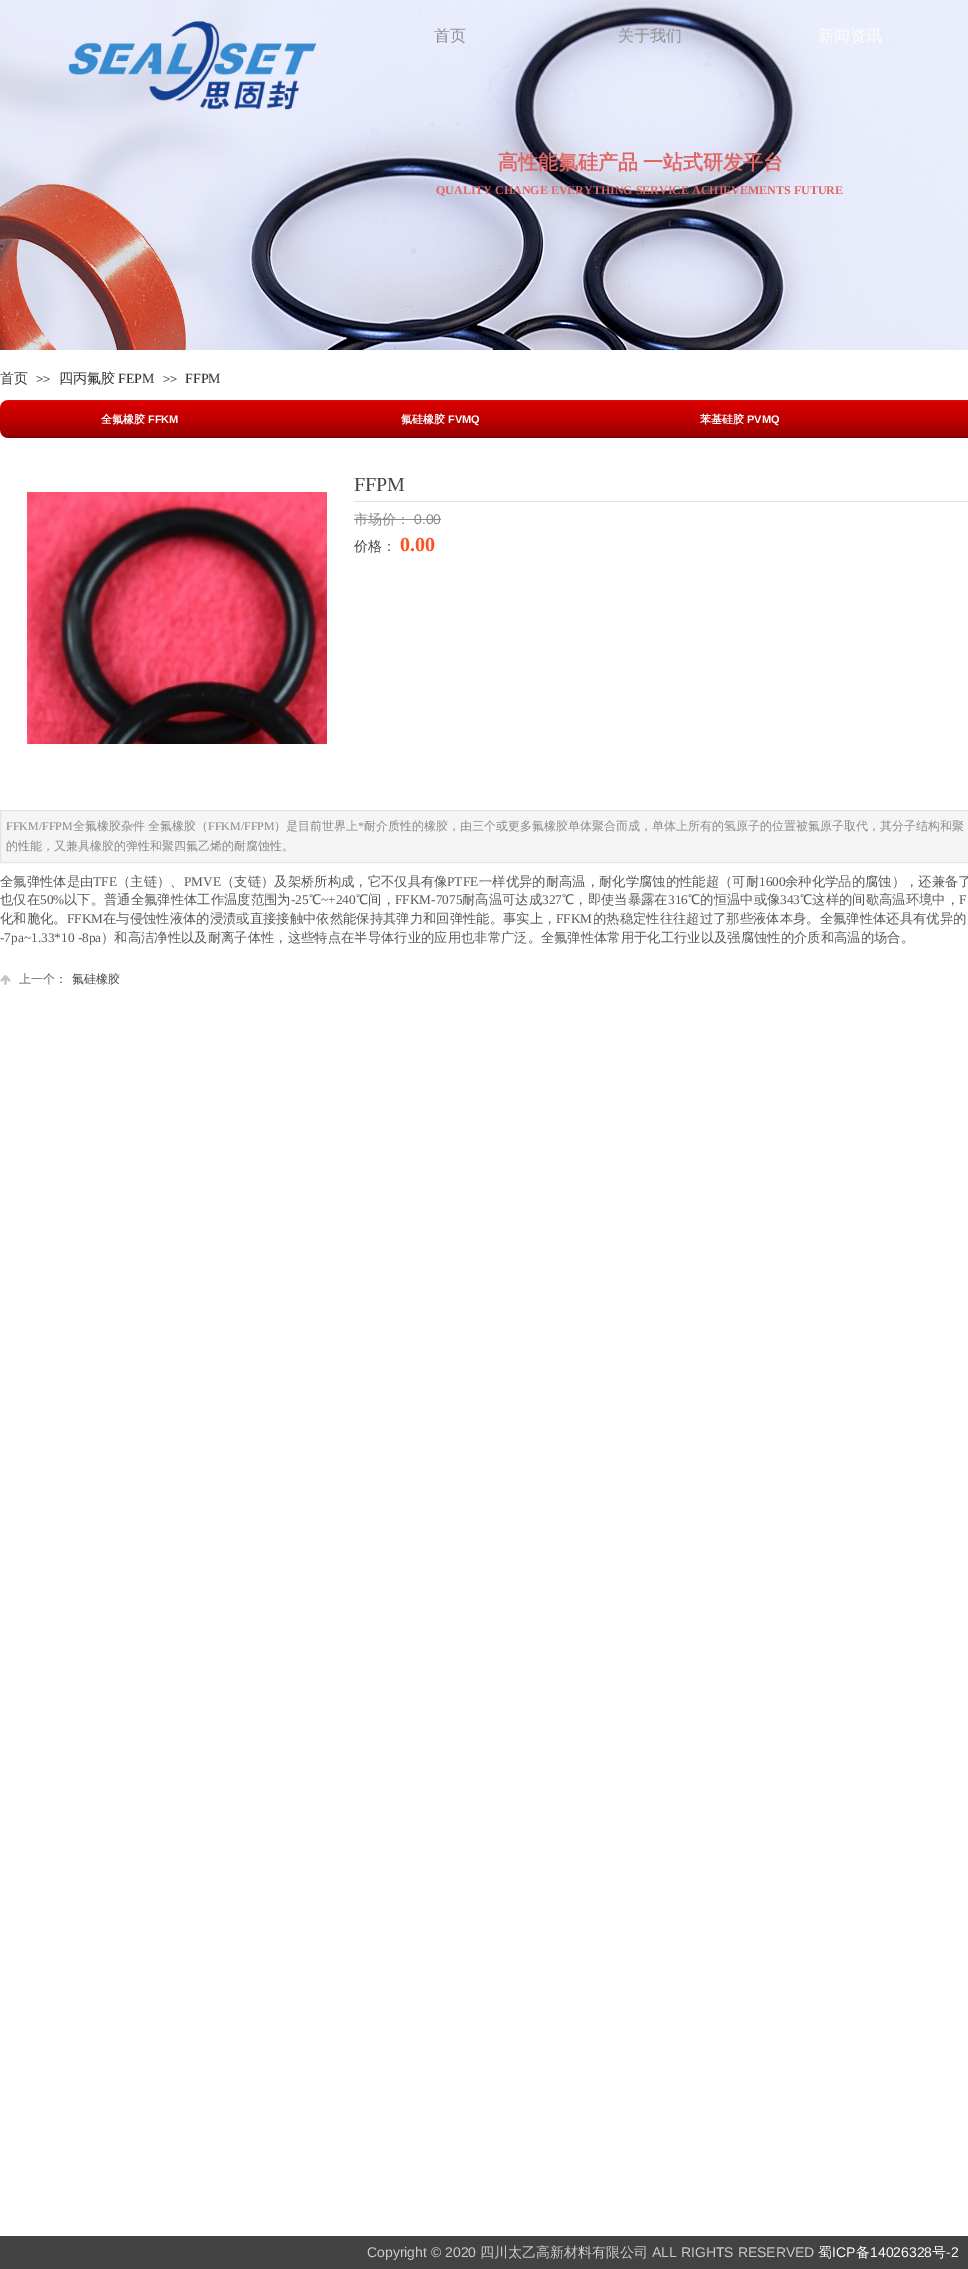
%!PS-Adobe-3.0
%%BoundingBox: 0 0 968 2269
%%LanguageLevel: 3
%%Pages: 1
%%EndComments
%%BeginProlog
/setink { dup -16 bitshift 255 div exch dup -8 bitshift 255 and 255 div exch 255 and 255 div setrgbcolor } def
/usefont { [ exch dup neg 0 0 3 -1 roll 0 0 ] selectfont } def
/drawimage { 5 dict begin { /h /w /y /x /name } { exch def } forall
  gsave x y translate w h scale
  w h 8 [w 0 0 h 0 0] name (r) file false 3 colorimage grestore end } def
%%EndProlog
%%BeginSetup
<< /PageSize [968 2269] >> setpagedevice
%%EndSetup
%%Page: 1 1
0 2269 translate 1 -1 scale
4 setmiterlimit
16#FFFFFF setink
0 0 968 2269 rectfill
(img1.raw) 0 0 968 350 drawimage
(img2.raw) 68 21 249 89 drawimage
/WenQuanYiZenHei-Medium 16 usefont
16#919191 setink
434 41 moveto (首页) show
618 41 moveto (关于我们) show
16#FFFFFF setink
818 41 moveto (新闻资讯) show
/WenQuanYiZenHei-Bold 20 usefont
16#E06666 setink
498 169 moveto -1 0 32 (高性能氟硅产品 一站式研发平台) widthshow
/LiberationSerif-Bold 12 usefont
436 194 moveto (QUALITY CHANGE EVERYTHING SERVICE ACHIEVEMENTS FUTURE) show
/WenQuanYiZenHei-Medium 14 usefont
16#333333 setink
0 383 moveto (首页) show
/LiberationSans-Regular 12 usefont
16#5A5A5A setink
36 383 moveto (>>) show
/WenQuanYiZenHei-Medium 14 usefont
16#333333 setink
59 383 moveto (四丙氟胶) show
/LiberationSerif-Regular 14 usefont
118 383 moveto (FEPM) show
/LiberationSans-Regular 12 usefont
16#5A5A5A setink
163 383 moveto (>>) show
/LiberationSerif-Regular 14 usefont
16#333333 setink
185 383 moveto (FFPM) show
(img3.raw) 0 400 968 38 drawimage
/WenQuanYiZenHei-Bold 11 usefont
16#FFFFFF setink
101 423 moveto (全氟橡胶) show
/LiberationSans-Bold 11 usefont
148 423 moveto (FFKM) show
/WenQuanYiZenHei-Bold 11 usefont
401 423 moveto (氟硅橡胶) show
/LiberationSans-Bold 11 usefont
448 423 moveto (FVMQ) show
/WenQuanYiZenHei-Bold 11 usefont
700 423 moveto (苯基硅胶) show
/LiberationSans-Bold 11 usefont
747 423 moveto (PVMQ) show
(img4.raw) 27 492 300 252 drawimage
16#E2E2E2 setink
354 501 614 1 rectfill
/LiberationSerif-Regular 20 usefont
16#454545 setink
354 491 moveto (FFPM) show
/WenQuanYiZenHei-Medium 14 usefont
16#898989 setink
354 524 moveto (市场价：) show
354 519 60 1 rectfill
/LiberationSans-Regular 14 usefont
414 524 moveto (0.00) show
414 519 27 1 rectfill
/WenQuanYiZenHei-Medium 14 usefont
16#454545 setink
354 551 moveto (价格：) show
/LiberationSerif-Bold 20 usefont
16#FF5022 setink
400 551 moveto (0.00) show
16#F5F5F5 setink
0.5 810.5 moveto 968.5 810.5 lineto 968.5 862.5 lineto 0.5 862.5 lineto closepath gsave fill grestore
16#E5E5E5 setink
stroke
/LiberationSerif-Regular 12 usefont
16#898989 setink
6 830 moveto (FFKM/FFPM) show
/WenQuanYiZenHei-Medium 12 usefont
73 830 moveto -1 0 32 (全氟橡胶杂件 全氟橡胶（) widthshow
/LiberationSerif-Regular 12 usefont
208 830 moveto (FFKM/FFPM) show
/WenQuanYiZenHei-Medium 12 usefont
274 830 moveto (）是目前世界上) show
/LiberationSerif-Regular 12 usefont
358 830 moveto (*) show
/WenQuanYiZenHei-Medium 12 usefont
364 830 moveto (耐介质性的橡胶，由三个或更多氟橡胶单体聚合而成，单体上所有的氢原子的位置被氟原子取代，其分子结构和聚) show
6 850 moveto (的性能，又兼具橡胶的弹性和聚四氟乙烯的耐腐蚀性。) show
/WenQuanYiZenHei-Medium 13.33 usefont
16#5A5A5A setink
0 886 moveto (全氟弹性体是由) show
/LiberationSerif-Regular 13.33 usefont
93 886 moveto (TFE) show
/WenQuanYiZenHei-Medium 13.33 usefont
117 886 moveto (（主链）、) show
/LiberationSerif-Regular 13.33 usefont
184 886 moveto (PMVE) show
/WenQuanYiZenHei-Medium 13.33 usefont
221 886 moveto (（支链）及架桥所构成，它不仅具有像) show
/LiberationSerif-Regular 13.33 usefont
447 886 moveto (PTFE) show
/WenQuanYiZenHei-Medium 13.33 usefont
479 886 moveto (一样优异的耐高温，耐化学腐蚀的性能超（可耐) show
/LiberationSerif-Regular 13.33 usefont
759 886 moveto (1600) show
/WenQuanYiZenHei-Medium 13.33 usefont
785 886 moveto (余种化学品的腐蚀），还兼备了) show
0 904 moveto (也仅在) show
/LiberationSerif-Regular 13.33 usefont
40 904 moveto (50%) show
/WenQuanYiZenHei-Medium 13.33 usefont
64 904 moveto (以下。普通全氟弹性体工作温度范围为) show
/LiberationSerif-Regular 13.33 usefont
291 904 moveto (-25) show
/WenQuanYiZenHei-Medium 13.33 usefont
309 904 moveto (℃) show
/LiberationSerif-Regular 13.33 usefont
321 904 moveto (~+240) show
/WenQuanYiZenHei-Medium 13.33 usefont
356 904 moveto (℃间，) show
/LiberationSerif-Regular 13.33 usefont
395 904 moveto (FFKM-7075) show
/WenQuanYiZenHei-Medium 13.33 usefont
462 904 moveto (耐高温可达成) show
/LiberationSerif-Regular 13.33 usefont
542 904 moveto (327) show
/WenQuanYiZenHei-Medium 13.33 usefont
562 904 moveto (℃，即使当暴露在) show
/LiberationSerif-Regular 13.33 usefont
668 904 moveto (316) show
/WenQuanYiZenHei-Medium 13.33 usefont
688 904 moveto (℃的恒温中或像) show
/LiberationSerif-Regular 13.33 usefont
780 904 moveto (343) show
/WenQuanYiZenHei-Medium 13.33 usefont
800 904 moveto (℃这样的间歇高温环境中，) show
/LiberationSerif-Regular 13.33 usefont
959 904 moveto (F) show
/WenQuanYiZenHei-Medium 13.33 usefont
0 923 moveto (化和脆化。) show
/LiberationSerif-Regular 13.33 usefont
67 923 moveto (FFKM) show
/WenQuanYiZenHei-Medium 13.33 usefont
103 923 moveto (在与侵蚀性液体的浸渍或直接接触中依然能保持其弹力和回弹性能。事实上，) show
/LiberationSerif-Regular 13.33 usefont
556 923 moveto (FFKM) show
/WenQuanYiZenHei-Medium 13.33 usefont
593 923 moveto (的热稳定性往往超过了那些液体本身。全氟弹性体还具有优异的) show
/LiberationSerif-Regular 13.33 usefont
0 942 moveto (-7pa~1.33*10 -8pa) show
/WenQuanYiZenHei-Medium 13.33 usefont
101 942 moveto (）和高洁净性以及耐离子体性，这些特点在半导体行业的应用也非常广泛。全氟弹性体常用于化工行业以及强腐蚀性的介质和高温的场合。) show
16#C2C2C2 setink
0 975 11 10 rectfill
(img5.raw) 0 975 11 10 drawimage
/WenQuanYiZenHei-Medium 12 usefont
16#5A5A5A setink
19 983 moveto (上一个：) show
16#454545 setink
72 983 moveto (氟硅橡胶) show
16#434343 setink
0 2236 968 33 rectfill
/LiberationSans-Regular 14 usefont
16#CCCCCC setink
367 2257 moveto (Copyright © 2020) show
/WenQuanYiZenHei-Medium 14 usefont
480 2257 moveto (四川太乙高新材料有限公司) show
/LiberationSans-Regular 14 usefont
652 2257 moveto (ALL RIGHTS RESERVED) show
/WenQuanYiZenHei-Medium 14 usefont
16#FFFFFF setink
818 2257 moveto (蜀) show
/LiberationSans-Regular 14 usefont
832 2257 moveto (ICP) show
/WenQuanYiZenHei-Medium 14 usefont
856 2257 moveto (备) show
/LiberationSans-Regular 14 usefont
870 2257 moveto (14026328) show
/WenQuanYiZenHei-Medium 14 usefont
932 2257 moveto (号) show
/LiberationSans-Regular 14 usefont
946 2257 moveto (-2) show
showpage
%%EOF
